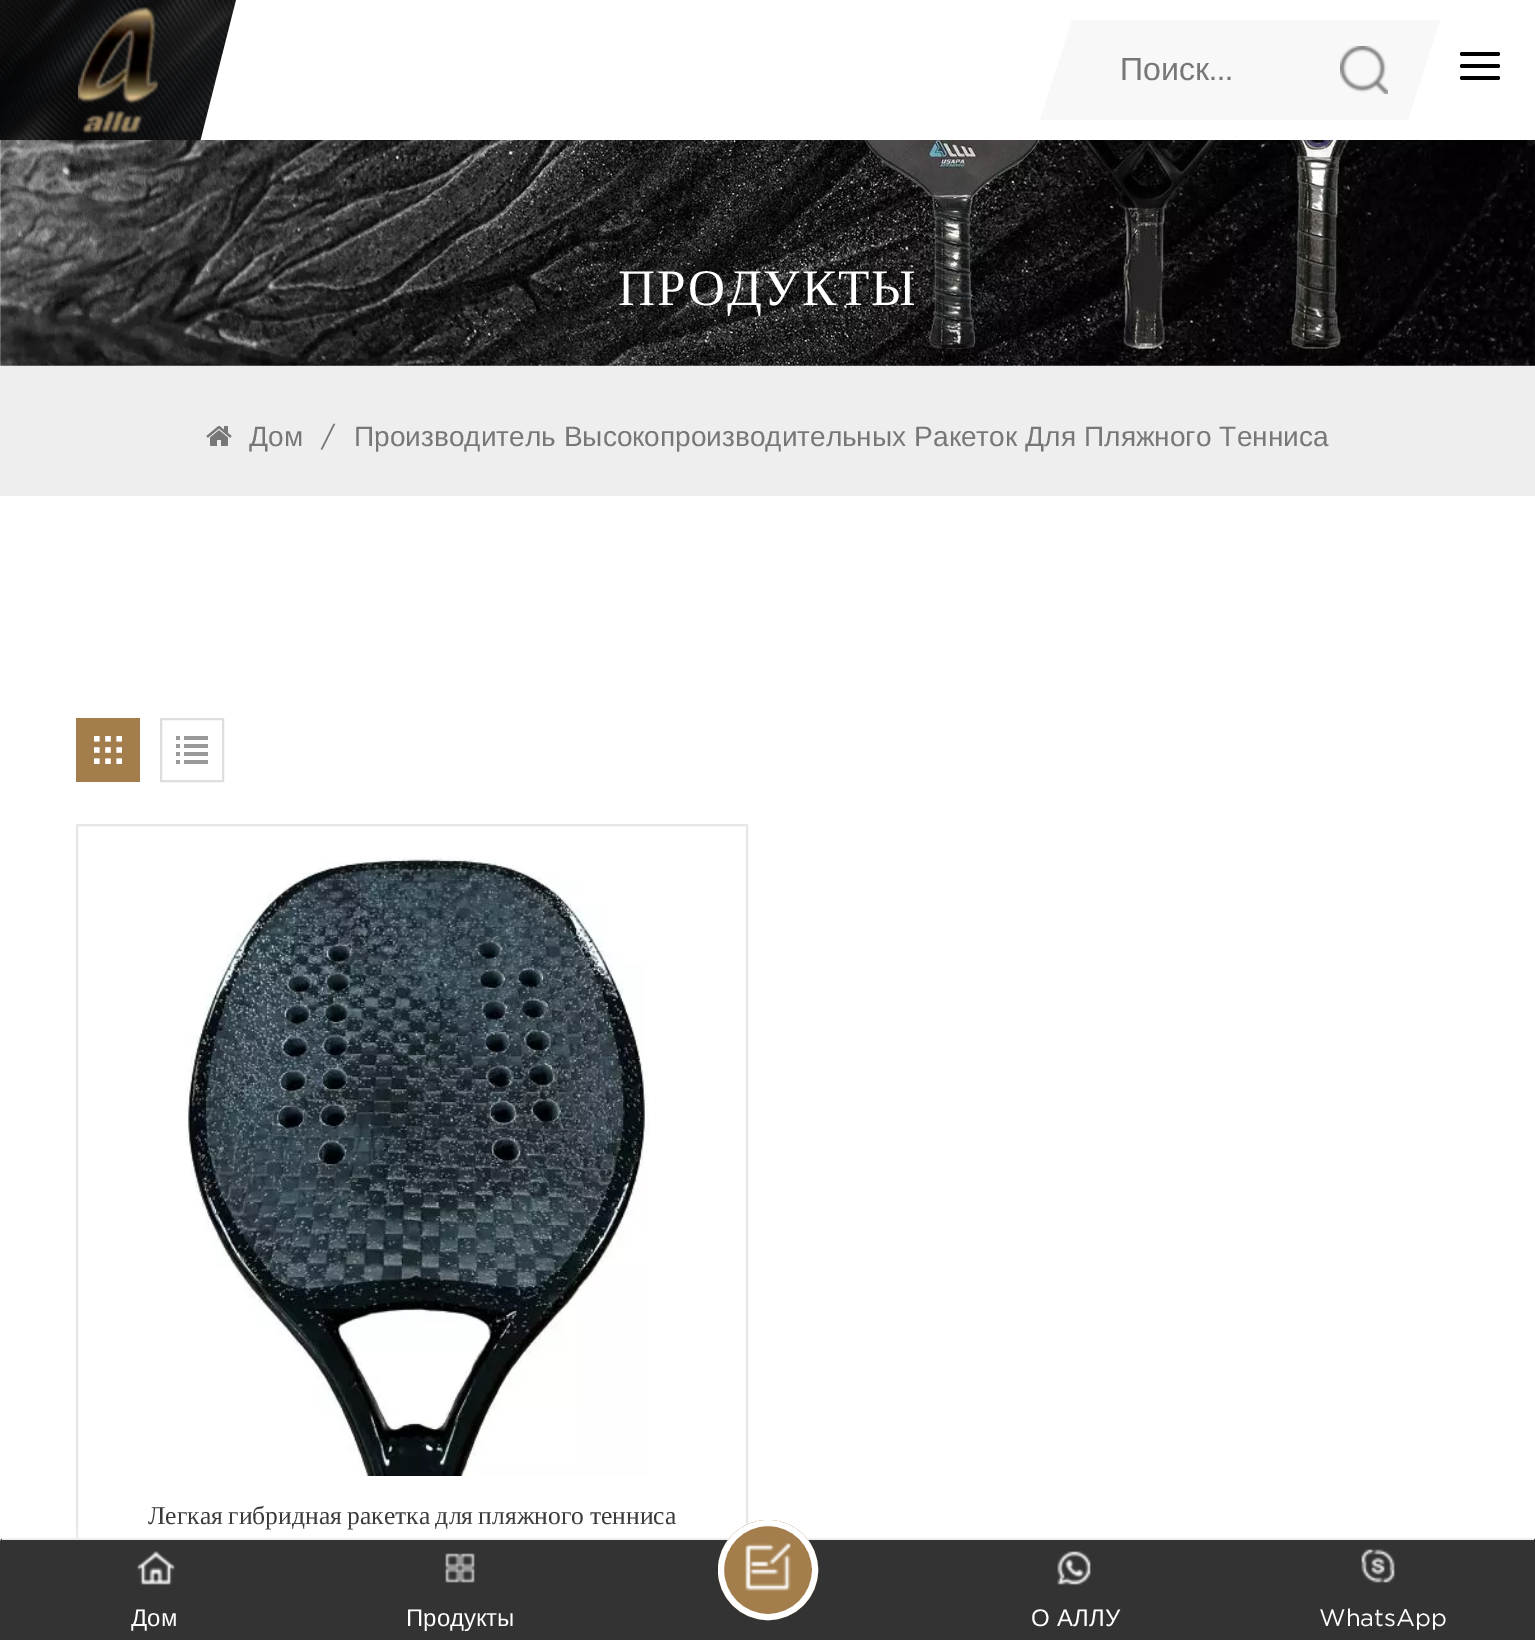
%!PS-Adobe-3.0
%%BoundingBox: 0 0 1535 1640
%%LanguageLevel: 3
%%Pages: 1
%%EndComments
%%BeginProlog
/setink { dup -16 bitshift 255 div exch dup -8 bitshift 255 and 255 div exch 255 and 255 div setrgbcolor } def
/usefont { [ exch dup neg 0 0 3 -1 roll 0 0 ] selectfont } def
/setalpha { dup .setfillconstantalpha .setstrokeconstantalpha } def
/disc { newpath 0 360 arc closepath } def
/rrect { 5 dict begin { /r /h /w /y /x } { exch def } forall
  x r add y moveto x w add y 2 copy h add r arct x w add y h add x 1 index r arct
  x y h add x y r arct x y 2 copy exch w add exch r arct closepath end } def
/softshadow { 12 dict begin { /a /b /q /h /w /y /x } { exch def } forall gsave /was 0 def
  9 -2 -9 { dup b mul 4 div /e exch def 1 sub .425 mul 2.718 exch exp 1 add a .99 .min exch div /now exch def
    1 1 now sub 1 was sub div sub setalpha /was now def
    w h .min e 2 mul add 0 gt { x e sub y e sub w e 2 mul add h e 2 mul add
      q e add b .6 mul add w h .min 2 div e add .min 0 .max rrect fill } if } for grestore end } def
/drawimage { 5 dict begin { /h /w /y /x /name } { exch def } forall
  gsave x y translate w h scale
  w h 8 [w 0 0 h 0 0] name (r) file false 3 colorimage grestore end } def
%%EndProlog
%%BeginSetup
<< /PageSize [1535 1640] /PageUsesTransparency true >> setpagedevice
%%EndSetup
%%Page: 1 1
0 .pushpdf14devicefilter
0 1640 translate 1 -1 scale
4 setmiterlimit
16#FFFFFF setink
0 0 1535 1640 rectfill
(img1.raw) 0 0 236 140 drawimage
(img2.raw) 78 7 80 127 drawimage
16#F8F8F8 setink
1072 20 moveto 1040 120 lineto 1408 120 lineto 1440 20 lineto closepath fill
/LiberationSans-Regular 32 usefont
16#777777 setink
1120 80 moveto (Поиск) show
/Gotham-Regular 32 usefont
1209 80 moveto (...) show
(img3.raw) 1340 46 48 48 drawimage
16#000000 setink
1460 64 40 4 2 rrect fill
1460 52 40 4 2 rrect fill
1460 76 40 4 2 rrect fill
(img4.raw) 0 140 1535 226 drawimage
/LiberationSerif-Regular 51.25 usefont
16#FFFFFF setink
618 305 moveto 2 0 (ПРОДУКТЫ) ashow
16#EEEEEE setink
0 366 1535 130 rectfill
(img5.raw) 206 426 26 20 drawimage
/LiberationSans-Regular 28 usefont
16#777777 setink
249 446 moveto (Дом) show
/Gotham-Regular 28 usefont
321 446 moveto (/) show
/LiberationSans-Regular 28 usefont
354 446 moveto 0.5 0 32 (Производитель Высокопроизводительных Ракеток Для Пляжного Тенниса) widthshow
16#A37E4C setink
76 718 64 64 rectfill
(img6.raw) 94 736 28 28 drawimage
16#DDDDDD setink
2 setlinewidth
161 719 62 62 rectstroke
(img7.raw) 176 736 32 28 drawimage
16#E6E6E6 setink
77 825 670 774 rectstroke
(img8.raw) 185 857 464 619 drawimage
/LiberationSerif-Regular 25.6 usefont
16#333333 setink
148 1524 moveto -1 0 32 (Легкая гибридная ракетка для пляжного тенниса) widthshow
16#FFFFFF setink
0 1538 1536 102 4 15 0.4 softshadow
16#333333 setink
4 1538 moveto 1532 1538 lineto 1534 1538 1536 1540 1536 1542 curveto 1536 1640 lineto 0 1640 lineto 0 1542 lineto 0 1540 2 1538 4 1538 curveto closepath fill
16#EEEEEE setink
2 1538 1532 2 rectfill
16#A37E4C setink
768 1570 50 disc fill
(img9.raw) 745 1543 46 48 drawimage
16#FFFFFF setink
6 setlinewidth
768 1570 47 disc stroke
(img10.raw) 137 1551 38 34 drawimage
/LiberationSans-Regular 24 usefont
131 1626 moveto (Дом) show
(img11.raw) 445 1553 30 30 drawimage
406 1626 moveto (Продукты) show
(img12.raw) 1057 1551 34 34 drawimage
1031 1626 moveto 1 0 32 (О АЛЛУ) widthshow
(img13.raw) 1361 1549 34 34 drawimage
/Gotham-Regular 24 usefont
1319 1626 moveto (WhatsApp) show
.poppdf14devicefilter showpage
%%EOF
